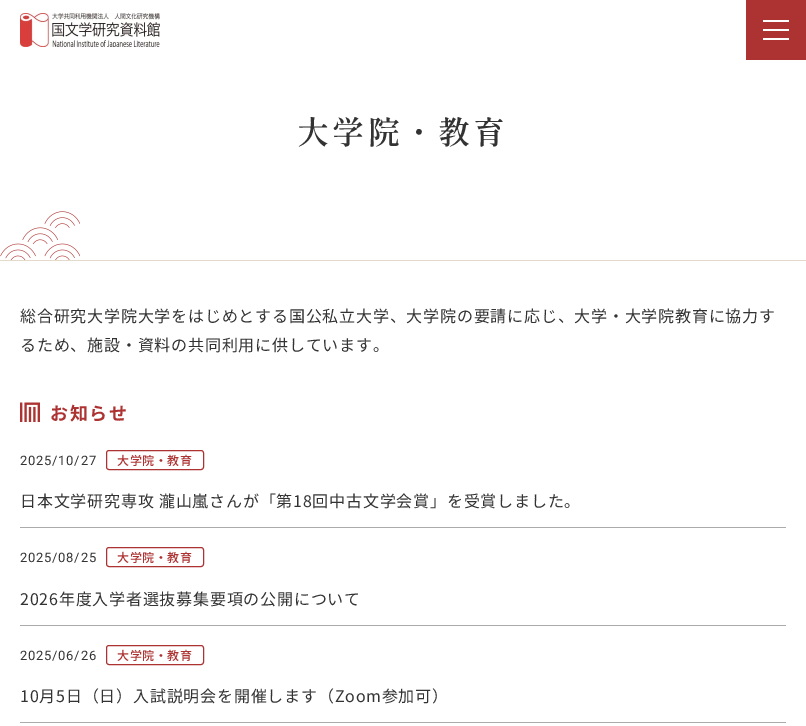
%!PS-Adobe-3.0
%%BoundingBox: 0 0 806 726
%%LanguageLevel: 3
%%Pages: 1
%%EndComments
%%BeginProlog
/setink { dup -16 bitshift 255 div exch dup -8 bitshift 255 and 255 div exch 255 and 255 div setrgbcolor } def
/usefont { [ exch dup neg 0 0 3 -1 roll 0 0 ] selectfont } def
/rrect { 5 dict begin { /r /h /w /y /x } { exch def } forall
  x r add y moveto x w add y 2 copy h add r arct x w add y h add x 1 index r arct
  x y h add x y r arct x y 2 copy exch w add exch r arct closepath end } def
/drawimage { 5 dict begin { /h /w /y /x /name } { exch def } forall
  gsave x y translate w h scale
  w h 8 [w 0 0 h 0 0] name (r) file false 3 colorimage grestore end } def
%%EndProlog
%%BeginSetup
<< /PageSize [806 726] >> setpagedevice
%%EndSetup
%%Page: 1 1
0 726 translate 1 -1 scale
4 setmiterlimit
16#FFFFFF setink
0 0 806 726 rectfill
(img1.raw) 20 13 140 34 drawimage
[
    [746 0 60 60 16#AC3331]
    [763 29 26 2 16#FFFFFF]
    [763 20 26 2 16#FFFFFF]
    [763 38 26 2 16#FFFFFF]
    [0 260 806 1 16#E4DAC9]
] { aload pop setink rectfill } forall
/ShipporiMinchoB1-SemiBold 32 usefont
16#333333 setink
297 144 moveto 3.25 0 (大学院・教育) ashow
(img2.raw) 0 211 80 49 drawimage
/NotoSansJP-Regular 16 usefont
20 322 moveto 0.8 0 (総合研究大学院大学をはじめとする国公私立大学、大学院の要請に応じ、大学・大学院教育に協力す) ashow
20 351 moveto 0.8 0 (るため、施設・資料の共同利用に供しています。) ashow
(img3.raw) 20 402 20 20 drawimage
/NotoSansJP-Bold 18 usefont
16#AC3331 setink
50 420 moveto 1.5 0 (お知らせ) ashow
16#ABABAB setink
20 527 766 1 rectfill
/Roboto-Regular 13 usefont
16#333333 setink
20 465 moveto 0.75 0 (2025/10/27) ashow
16#AC3331 setink
106.5 450.5 97 19 2.5 rrect stroke
/NotoSansJP-Medium 12 usefont
117 465 moveto 0.5 0 (大学院・教育) ashow
/NotoSansJP-Regular 16 usefont
16#333333 setink
20 507 moveto 0.8 0 (日本文学研究専攻 瀧山嵐さんが「第18回中古文学会賞」を受賞しました。) ashow
16#ABABAB setink
20 625 766 1 rectfill
/Roboto-Regular 13 usefont
16#333333 setink
20 562 moveto 0.75 0 (2025/08/25) ashow
16#AC3331 setink
106.5 547.5 97 19 2.5 rrect stroke
/NotoSansJP-Medium 12 usefont
117 562 moveto 0.5 0 (大学院・教育) ashow
/NotoSansJP-Regular 16 usefont
16#333333 setink
20 605 moveto 0.8 0 (2026年度入学者選抜募集要項の公開について) ashow
16#ABABAB setink
20 722 766 1 rectfill
/Roboto-Regular 13 usefont
16#333333 setink
20 660 moveto 0.75 0 (2025/06/26) ashow
16#AC3331 setink
106.5 645.5 97 19 2.5 rrect stroke
/NotoSansJP-Medium 12 usefont
117 660 moveto 0.5 0 (大学院・教育) ashow
/NotoSansJP-Regular 16 usefont
16#333333 setink
20 702 moveto 0.8 0 (10月5日（日）入試説明会を開催します（Zoom参加可）) ashow
showpage
%%EOF
